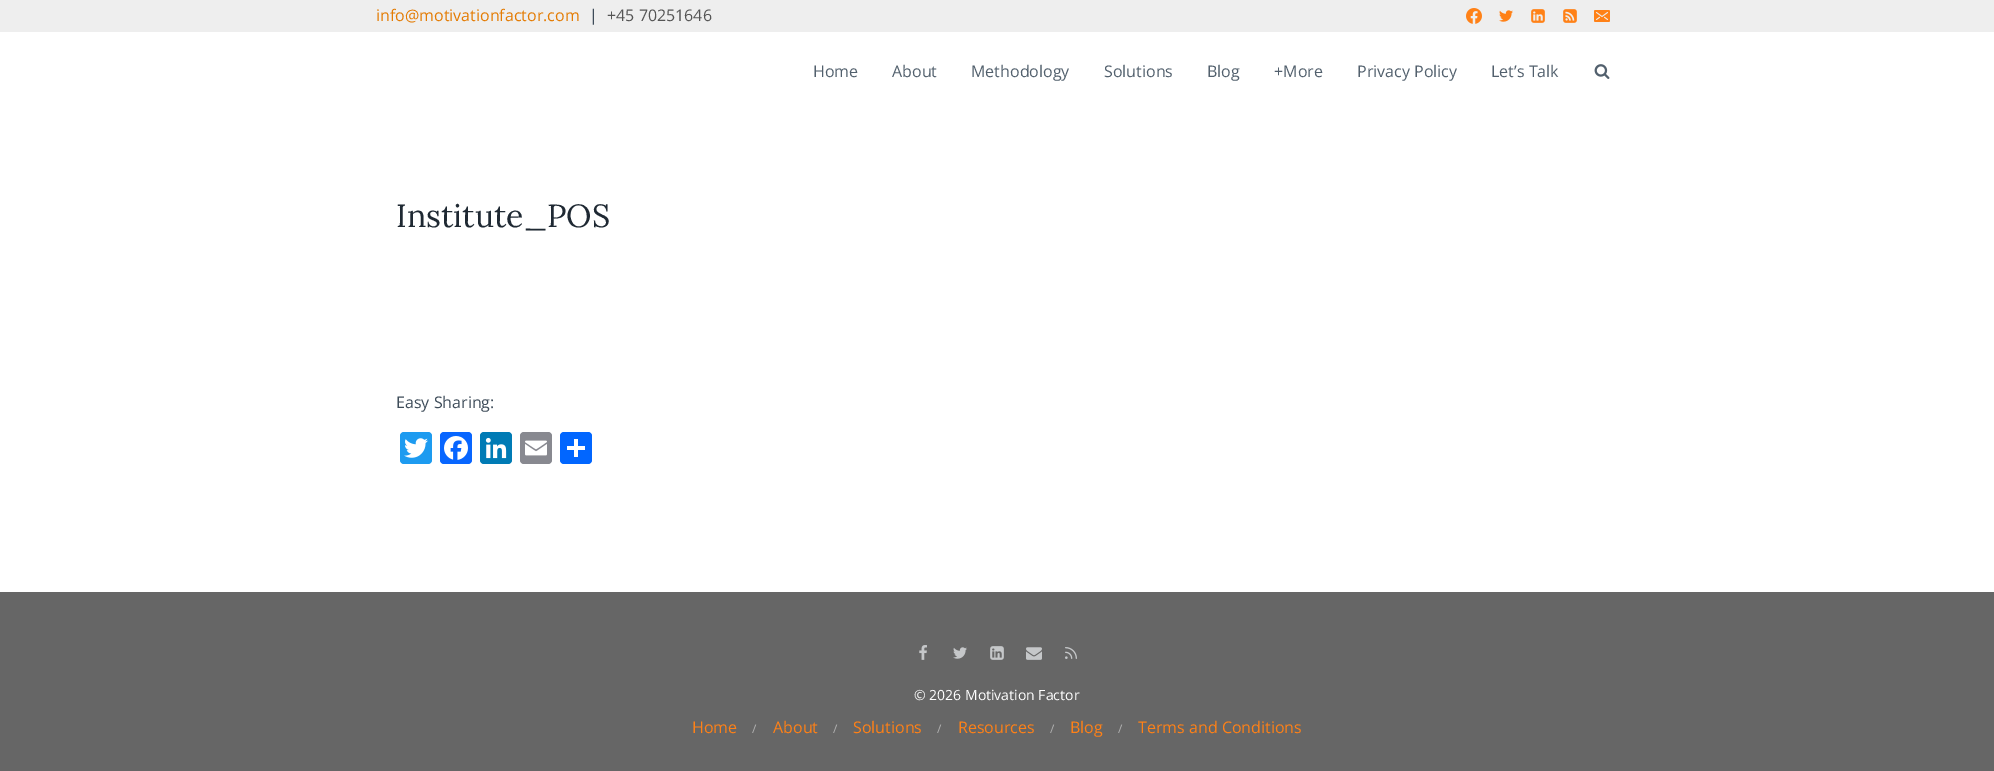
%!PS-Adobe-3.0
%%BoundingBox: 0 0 1994 771
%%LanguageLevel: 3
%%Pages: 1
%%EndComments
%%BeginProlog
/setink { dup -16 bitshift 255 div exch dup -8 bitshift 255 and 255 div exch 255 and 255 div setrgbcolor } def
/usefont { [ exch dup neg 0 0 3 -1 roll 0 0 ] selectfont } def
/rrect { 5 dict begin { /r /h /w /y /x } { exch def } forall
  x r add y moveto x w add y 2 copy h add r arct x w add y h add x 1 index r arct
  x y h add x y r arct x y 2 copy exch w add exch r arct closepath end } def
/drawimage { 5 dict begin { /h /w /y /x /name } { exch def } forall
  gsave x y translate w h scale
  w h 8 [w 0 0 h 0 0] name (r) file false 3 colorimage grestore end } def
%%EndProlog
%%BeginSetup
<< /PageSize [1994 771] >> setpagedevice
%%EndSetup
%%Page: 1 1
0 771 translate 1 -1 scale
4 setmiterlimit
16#FFFFFF setink
0 0 1994 771 rectfill
16#EEEEEE setink
0 0 1994 32 rectfill
/OpenSans-Regular 16 usefont
16#E47B02 setink
376 21 moveto (info@motivationfactor.com) show
16#3E4C59 setink
589 21 moveto (|) show
16#555555 setink
607 21 moveto (+45 70251646) show
(img1.raw) 1466 8 16 16 drawimage
(img2.raw) 1499 10 14 12 drawimage
(img3.raw) 1531 9 14 14 drawimage
(img4.raw) 1563 9 14 14 drawimage
(img5.raw) 1594 10 16 12 drawimage
16#52606D setink
[
    [(Home) 813 77]
    [(About) 892 77]
    [(Methodology) 971 77]
    [(Solutions) 1104 77]
    [(Blog) 1207 77]
    [(+More) 1274 77]
    [(Privacy Policy) 1357 77]
    [(Let’s Talk) 1491 77]
] { aload pop moveto show } forall
(img6.raw) 1594 64 16 15 drawimage
/Lora-Regular 32 usefont
16#1F2933 setink
396 227 moveto (Institute_POS) show
/OpenSans-Regular 16 usefont
16#3E4C59 setink
396 408 moveto (Easy Sharing:) show
16#1D9BF0 setink
400 432 32 32 4 rrect fill
(img7.raw) 404 438 24 20 drawimage
16#0866FF setink
440 432 32 32 4 rrect fill
(img8.raw) 444 436 24 24 drawimage
16#007BB5 setink
480 432 32 32 4 rrect fill
(img9.raw) 485 437 22 22 drawimage
16#888990 setink
520 432 32 32 4 rrect fill
(img10.raw) 525 440 22 16 drawimage
16#0166FF setink
560 432 32 32 4 rrect fill
[
    [574 439 4 18 16#FFFFFF]
    [567 446 18 4 16#FFFFFF]
    [0 592 1994 179 16#666666]
] { aload pop setink rectfill } forall
(img11.raw) 919 645 8 15 drawimage
(img12.raw) 953 647 14 12 drawimage
(img13.raw) 990 646 14 14 drawimage
(img14.raw) 1026 647 16 13 drawimage
(img15.raw) 1065 647 12 12 drawimage
/OpenSans-Regular 14 usefont
16#FFFFFF setink
914 700 moveto (© 2026 Motivation Factor) show
/OpenSans-Regular 16 usefont
16#FF8117 setink
692 733 moveto (Home) show
/OpenSans-Regular 12 usefont
16#B3B3B3 setink
752 733 moveto (/) show
/OpenSans-Regular 16 usefont
16#FF8117 setink
773 733 moveto (About) show
/OpenSans-Regular 12 usefont
16#B3B3B3 setink
833 733 moveto (/) show
/OpenSans-Regular 16 usefont
16#FF8117 setink
853 733 moveto (Solutions) show
/OpenSans-Regular 12 usefont
16#B3B3B3 setink
937 733 moveto (/) show
/OpenSans-Regular 16 usefont
16#FF8117 setink
958 733 moveto (Resources) show
/OpenSans-Regular 12 usefont
16#B3B3B3 setink
1050 733 moveto (/) show
/OpenSans-Regular 16 usefont
16#FF8117 setink
1070 733 moveto (Blog) show
/OpenSans-Regular 12 usefont
16#B3B3B3 setink
1118 733 moveto (/) show
/OpenSans-Regular 16 usefont
16#FF8117 setink
1138 733 moveto (Terms and Conditions) show
showpage
%%EOF
